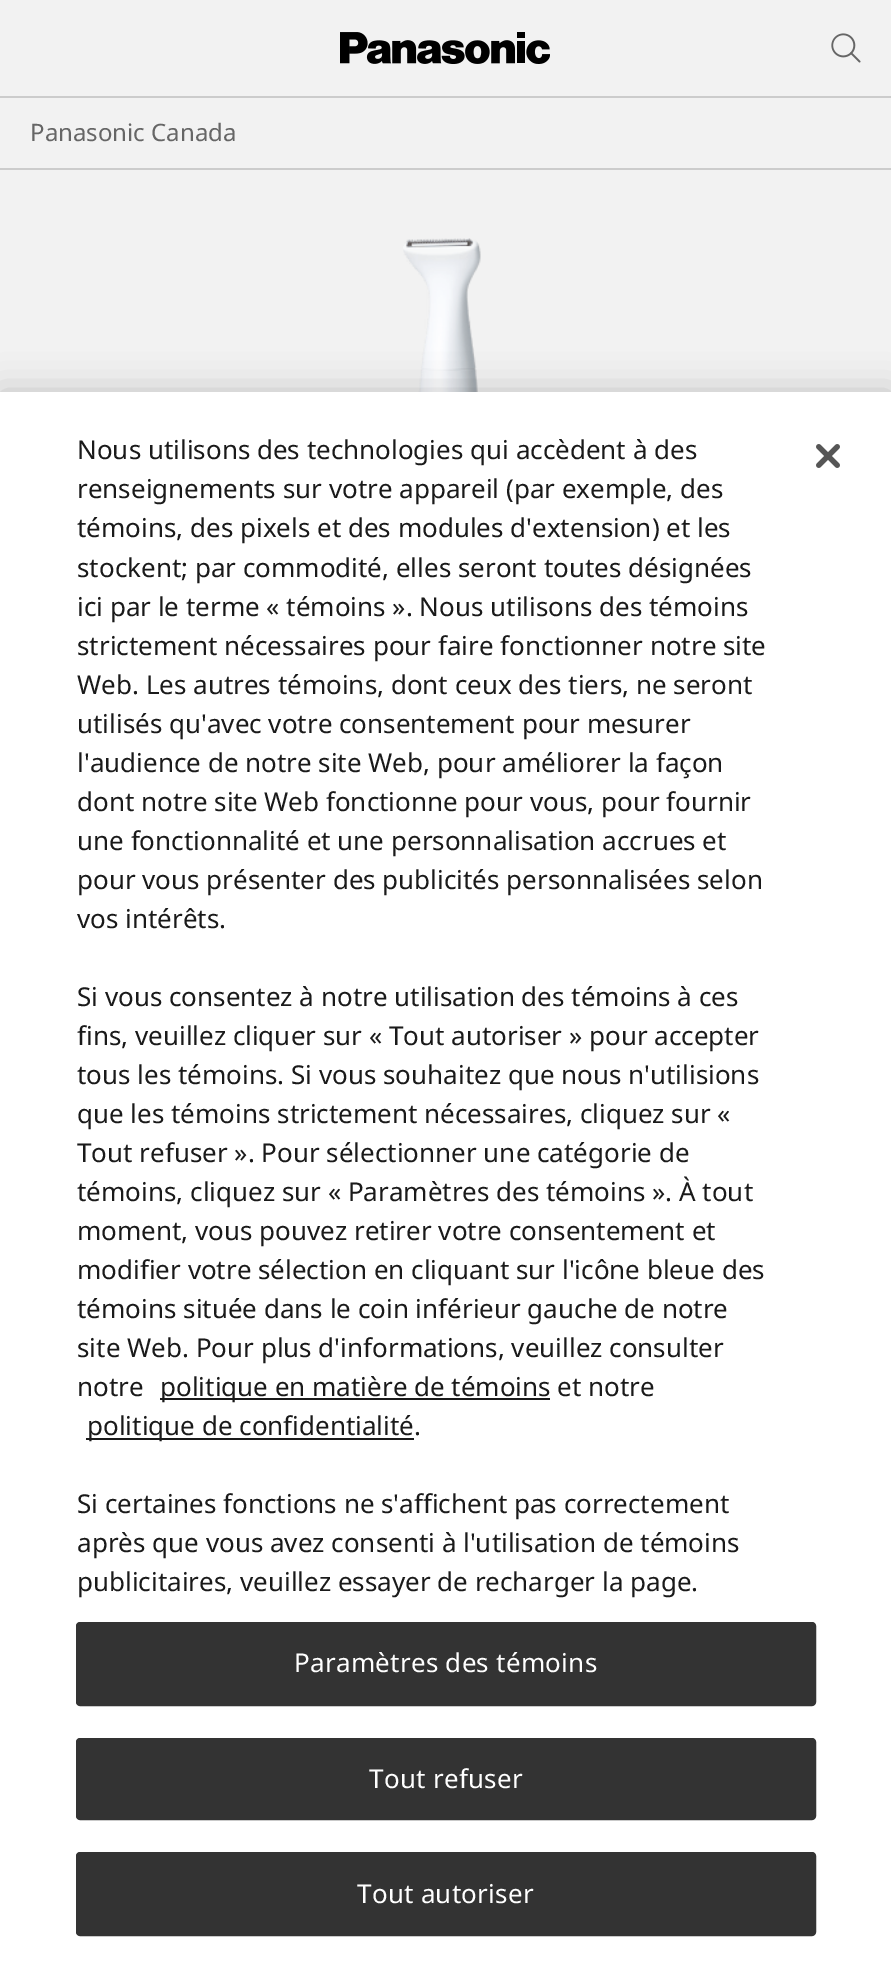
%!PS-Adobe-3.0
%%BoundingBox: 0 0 891 1968
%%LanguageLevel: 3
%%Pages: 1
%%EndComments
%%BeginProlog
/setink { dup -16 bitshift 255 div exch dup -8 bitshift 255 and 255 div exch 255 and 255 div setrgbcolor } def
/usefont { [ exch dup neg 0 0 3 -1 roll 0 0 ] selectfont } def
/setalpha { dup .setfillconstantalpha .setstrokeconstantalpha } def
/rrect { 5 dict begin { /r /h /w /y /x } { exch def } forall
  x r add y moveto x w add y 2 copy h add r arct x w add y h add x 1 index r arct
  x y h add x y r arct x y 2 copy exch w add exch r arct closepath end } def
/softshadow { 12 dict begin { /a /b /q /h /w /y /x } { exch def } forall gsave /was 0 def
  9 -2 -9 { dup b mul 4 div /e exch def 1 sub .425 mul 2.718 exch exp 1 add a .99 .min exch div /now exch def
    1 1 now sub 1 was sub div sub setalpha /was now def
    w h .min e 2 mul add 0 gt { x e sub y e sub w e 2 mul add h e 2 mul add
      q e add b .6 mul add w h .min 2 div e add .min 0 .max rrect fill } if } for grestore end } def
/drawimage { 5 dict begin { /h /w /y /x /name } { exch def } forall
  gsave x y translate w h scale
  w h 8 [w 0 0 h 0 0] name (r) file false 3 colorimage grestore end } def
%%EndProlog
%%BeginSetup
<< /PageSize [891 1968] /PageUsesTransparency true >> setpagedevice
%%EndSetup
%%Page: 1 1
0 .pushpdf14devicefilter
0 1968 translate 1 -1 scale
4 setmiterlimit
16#F2F2F2 setink
0 0 891 1968 rectfill
(img1.raw) 340 32 210 32 drawimage
(img2.raw) 831 33 30 30 drawimage
16#CCCCCC setink
0 96 891 2 rectfill
/NotoSans-Regular 24 usefont
16#666666 setink
30 141 moveto (Panasonic Canada) show
16#CCCCCC setink
0 168 891 2 rectfill
(img3.raw) 403 238 78 154 drawimage
16#000000 setink
0 392 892 1576 0 18 0.2 softshadow
16#FFFFFF setink
0 392 891 1576 rectfill
/NotoSans-Regular 26 usefont
16#1A1A1A setink
[
    [(Nous utilisons des technologies qui accèdent à des) 77 459]
    [(renseignements sur votre appareil \(par exemple, des) 77 498]
    [(témoins, des pixels et des modules d'extension\) et les) 77 537]
    [(stockent; par commodité, elles seront toutes désignées) 77 577]
    [(ici par le terme « témoins ». Nous utilisons des témoins) 77 616]
    [(strictement nécessaires pour faire fonctionner notre site) 77 655]
    [(Web. Les autres témoins, dont ceux des tiers, ne seront) 77 694]
    [(utilisés qu'avec votre consentement pour mesurer) 77 733]
    [(l'audience de notre site Web, pour améliorer la façon) 77 772]
    [(dont notre site Web fonctionne pour vous, pour fournir) 77 811]
    [(une fonctionnalité et une personnalisation accrues et) 77 850]
    [(pour vous présenter des publicités personnalisées selon) 77 889]
    [(vos intérêts.) 77 928]
    [(Si vous consentez à notre utilisation des témoins à ces) 77 1006]
    [(fins, veuillez cliquer sur « Tout autoriser » pour accepter) 77 1045]
    [(tous les témoins. Si vous souhaitez que nous n'utilisions) 77 1084]
    [(que les témoins strictement nécessaires, cliquez sur «) 77 1123]
    [(Tout refuser ». Pour sélectionner une catégorie de) 77 1162]
    [(témoins, cliquez sur « Paramètres des témoins ».) 77 1201]
    [(À tout) 679 1201]
    [(moment, vous pouvez retirer votre consentement et) 77 1240]
    [(modifier votre sélection en cliquant sur l'icône bleue des) 77 1279]
    [(témoins située dans le coin inférieur gauche de notre) 77 1318]
    [(site Web. Pour plus d'informations, veuillez consulter) 77 1357]
    [(notre) 77 1396]
] { aload pop moveto show } forall
160 1398 390 2 rectfill
160 1396 moveto (politique en matière de témoins et notre) show
86 1438 328 2 rectfill
[
    [(politique de confidentialité.) 87 1435]
    [(Si certaines fonctions ne s'affichent pas correctement) 77 1513]
    [(après que vous avez consenti à l'utilisation de témoins) 77 1552]
    [(publicitaires, veuillez essayer de recharger la page.) 77 1591]
] { aload pop moveto show } forall
16#333333 setink
77 1623 738 82 3 rrect gsave fill grestore
2 setlinewidth
stroke
16#FFFFFF setink
294 1672 moveto 0.25 0 (Paramètres des témoins) ashow
16#333333 setink
77 1739 738 80 3 rrect gsave fill grestore
stroke
16#FFFFFF setink
369 1788 moveto 0.25 0 (Tout refuser) ashow
16#333333 setink
77 1853 738 82 3 rrect gsave fill grestore
stroke
16#FFFFFF setink
357 1903 moveto 0.25 0 (Tout autoriser) ashow
(img4.raw) 816 444 24 24 drawimage
.poppdf14devicefilter showpage
%%EOF
